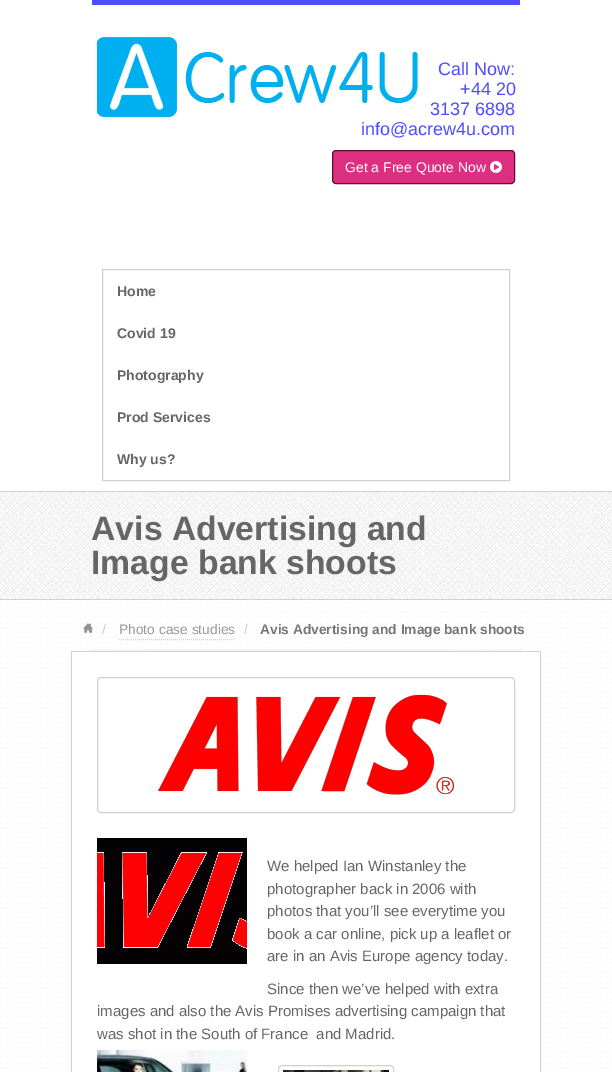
%!PS-Adobe-3.0
%%BoundingBox: 0 0 612 1072
%%LanguageLevel: 3
%%Pages: 1
%%EndComments
%%BeginProlog
/setink { dup -16 bitshift 255 div exch dup -8 bitshift 255 and 255 div exch 255 and 255 div setrgbcolor } def
/usefont { [ exch dup neg 0 0 3 -1 roll 0 0 ] selectfont } def
/rrect { 5 dict begin { /r /h /w /y /x } { exch def } forall
  x r add y moveto x w add y 2 copy h add r arct x w add y h add x 1 index r arct
  x y h add x y r arct x y 2 copy exch w add exch r arct closepath end } def
/drawimage { 5 dict begin { /h /w /y /x /name } { exch def } forall
  gsave x y translate w h scale
  w h 8 [w 0 0 h 0 0] name (r) file false 3 colorimage grestore end } def
%%EndProlog
%%BeginSetup
<< /PageSize [612 1072] >> setpagedevice
%%EndSetup
%%Page: 1 1
0 1072 translate 1 -1 scale
4 setmiterlimit
16#FFFFFF setink
0 0 612 1072 rectfill
16#4E4DFF setink
92 0 428 5 rectfill
(img1.raw) 97 37 321 80 drawimage
/LiberationSans-Regular 18 usefont
[
    [(Call Now:) 438 75]
    [(+44 20) 460 95]
    [(3137 6898) 430 115]
    [(info@acrew4u.com) 361 135]
] { aload pop moveto show } forall
16#DE2E81 setink
332.5 150.5 182 33 3.5 rrect gsave fill grestore
16#5C0D32 setink
stroke
/LiberationSans-Regular 14 usefont
16#FFFFFF setink
345 172 moveto (Get a Free Quote Now) show
(img2.raw) 490 161 12 12 drawimage
16#D1D1D1 setink
102.5 269.5 407 211 rectstroke
/LiberationSans-Bold 14 usefont
16#666666 setink
[
    [(Home) 117 296]
    [(Covid 19) 117 338]
    [(Photography) 117 380]
    [(Prod Services) 117 422]
    [(Why us?) 117 464]
] { aload pop moveto show } forall
(img3.raw) 0 492 612 107 drawimage
16#D1D1D1 setink
0 491 612 1 rectfill
/LiberationSans-Bold 33.75 usefont
16#666666 setink
91 540 moveto (Avis Advertising and) show
91 574 moveto (Image bank shoots) show
(img4.raw) 0 600 612 472 drawimage
16#D1D1D1 setink
0 599 612 1 rectfill
(img5.raw) 83 623 10 10 drawimage
/LiberationSans-Regular 13.75 usefont
16#CCCCCC setink
102 634 moveto (/) show
16#999999 setink
119 634 moveto (Photo case studies) show
16#D1D1D1 setink
[1 1] 0 setdash
119 639.5 moveto 235 639.5 lineto stroke
16#CCCCCC setink
244 634 moveto (/) show
/LiberationSans-Bold 13.75 usefont
16#777777 setink
260 634 moveto (Avis Advertising and Image bank shoots) show
(img6.raw) 89 649 434 2 drawimage
16#FFFFFF setink
72 652 466 420 rectfill
16#D1D1D1 setink
71 651 470 1 rectfill
541 651 moveto 541 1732 lineto 540 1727 lineto 540 652 lineto closepath fill
71 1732 moveto 71 651 lineto 72 652 lineto 72 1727 lineto closepath fill
[] 0 setdash
97.5 677.5 417 135 3.5 rrect stroke
(img7.raw) 157 694 298 101 drawimage
(img8.raw) 97 838 150 126 drawimage
/LiberationSans-Regular 15 usefont
16#666666 setink
[
    [(We helped Ian Winstanley the) 267 871]
    [(photographer back in 2006 with) 267 894]
    [(photos that you’ll see everytime you) 267 916]
    [(book a car online, pick up a leaflet or) 267 939]
    [(are in an Avis Europe agency today.) 267 961]
    [(Since then we’ve helped with extra) 267 994]
    [(images and also the Avis Promises advertising campaign that) 97 1016]
    [(was shot in the South of France  and Madrid.) 97 1039]
] { aload pop moveto show } forall
(img9.raw) 97 1050 150 22 drawimage
16#D1D1D1 setink
278.5 1065.5 115 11 3.5 rrect stroke
(img10.raw) 283 1070 106 2 drawimage
showpage
%%EOF
